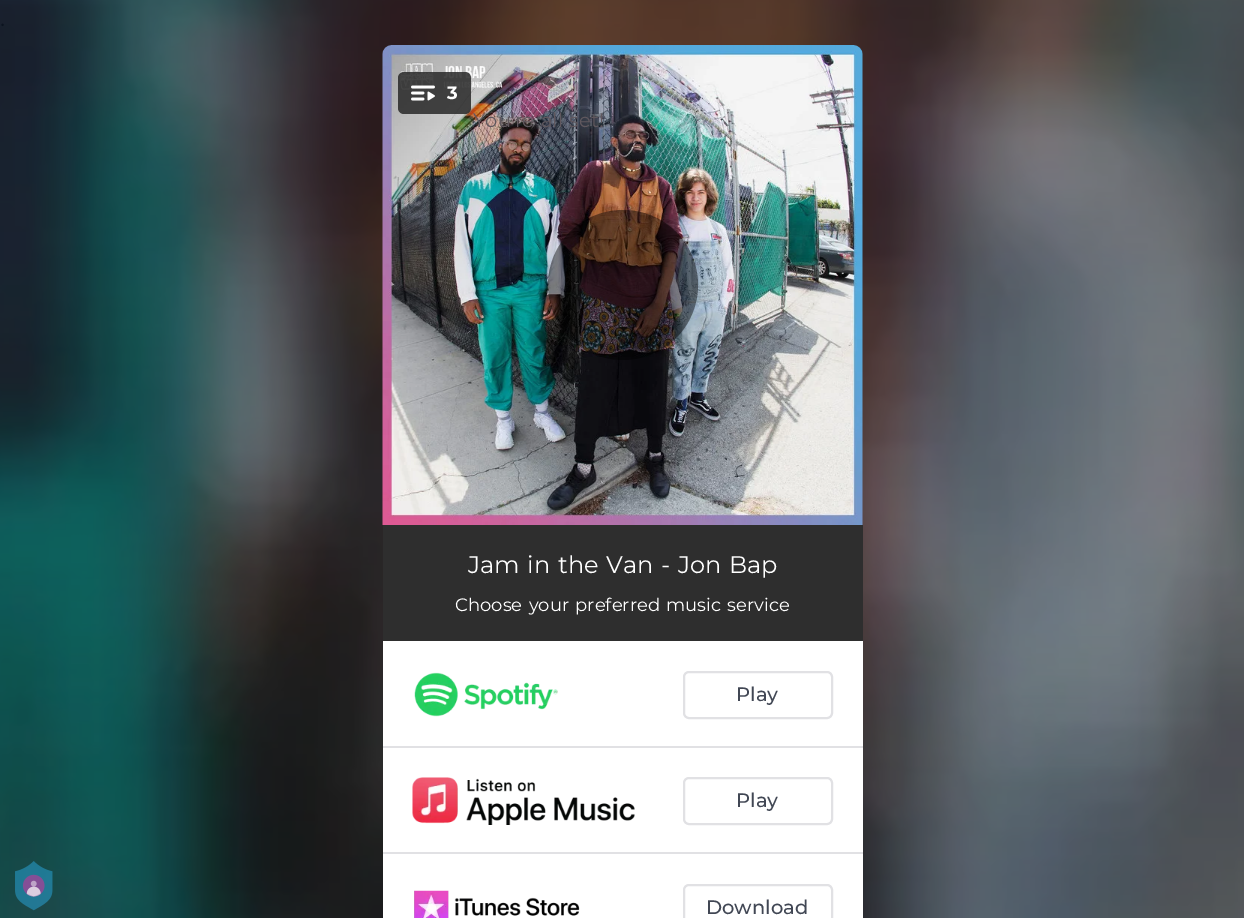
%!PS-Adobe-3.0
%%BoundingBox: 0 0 1244 918
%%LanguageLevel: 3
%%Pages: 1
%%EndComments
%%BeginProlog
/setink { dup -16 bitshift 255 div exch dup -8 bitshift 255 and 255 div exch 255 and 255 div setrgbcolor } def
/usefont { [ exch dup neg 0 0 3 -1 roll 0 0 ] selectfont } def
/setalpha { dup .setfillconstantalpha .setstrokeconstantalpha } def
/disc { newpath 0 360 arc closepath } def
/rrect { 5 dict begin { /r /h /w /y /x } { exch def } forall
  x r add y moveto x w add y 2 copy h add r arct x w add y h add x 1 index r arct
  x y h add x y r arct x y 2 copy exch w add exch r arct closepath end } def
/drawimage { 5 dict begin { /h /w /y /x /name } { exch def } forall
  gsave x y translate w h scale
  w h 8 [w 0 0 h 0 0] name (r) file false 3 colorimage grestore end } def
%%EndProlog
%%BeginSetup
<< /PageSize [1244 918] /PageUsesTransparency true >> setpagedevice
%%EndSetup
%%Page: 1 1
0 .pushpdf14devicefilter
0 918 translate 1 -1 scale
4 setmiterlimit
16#FFFFFF setink
0 0 1244 918 rectfill
(img2.raw) 0 0 1244 918 drawimage
(img1.raw) 15 861 38 50 drawimage
(img3.raw) 382 45 481 480 drawimage
0.85 setalpha
16#282828 setink
398 72 73 42 6 rrect fill
1 setalpha
(img4.raw) 411 85 24 16 drawimage
/Montserrat-Bold 18 usefont
16#FFFFFF setink
447 99 moveto (3) show
0.45 setalpha
16#000000 setink
623 285 75 disc fill
/Montserrat-Regular 19.5 usefont
1 setalpha
16#60585E setink
473 127 moveto 1.5 0 32 (You're all set!) widthshow
16#2E2E2E setink
383 525 480 116 rectfill
/Montserrat-Regular 24 usefont
16#FFFFFF setink
468 573 moveto 1.5 0 32 (Jam in the Van - Jon Bap) widthshow
/Montserrat-Regular 18 usefont
455 611 moveto 1.5 0 32 (Choose your preferred music service) widthshow
383 641 480 277 rectfill
16#E1E1E4 setink
383 746 480 2 rectfill
(img5.raw) 414 672 144 45 drawimage
2 setlinewidth
684 672 148 46 5 rrect stroke
/Montserrat-Medium 19.5 usefont
16#414754 setink
736 701 moveto (Play) show
16#E1E1E4 setink
383 852 480 2 rectfill
(img6.raw) 412 777 223 48 drawimage
684 778 148 46 5 rrect stroke
16#414754 setink
736 807 moveto (Play) show
(img7.raw) 414 890 166 28 drawimage
16#E1E1E4 setink
684 885 148 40 5 rrect stroke
16#414754 setink
706 914 moveto (Download) show
.poppdf14devicefilter showpage
%%EOF
